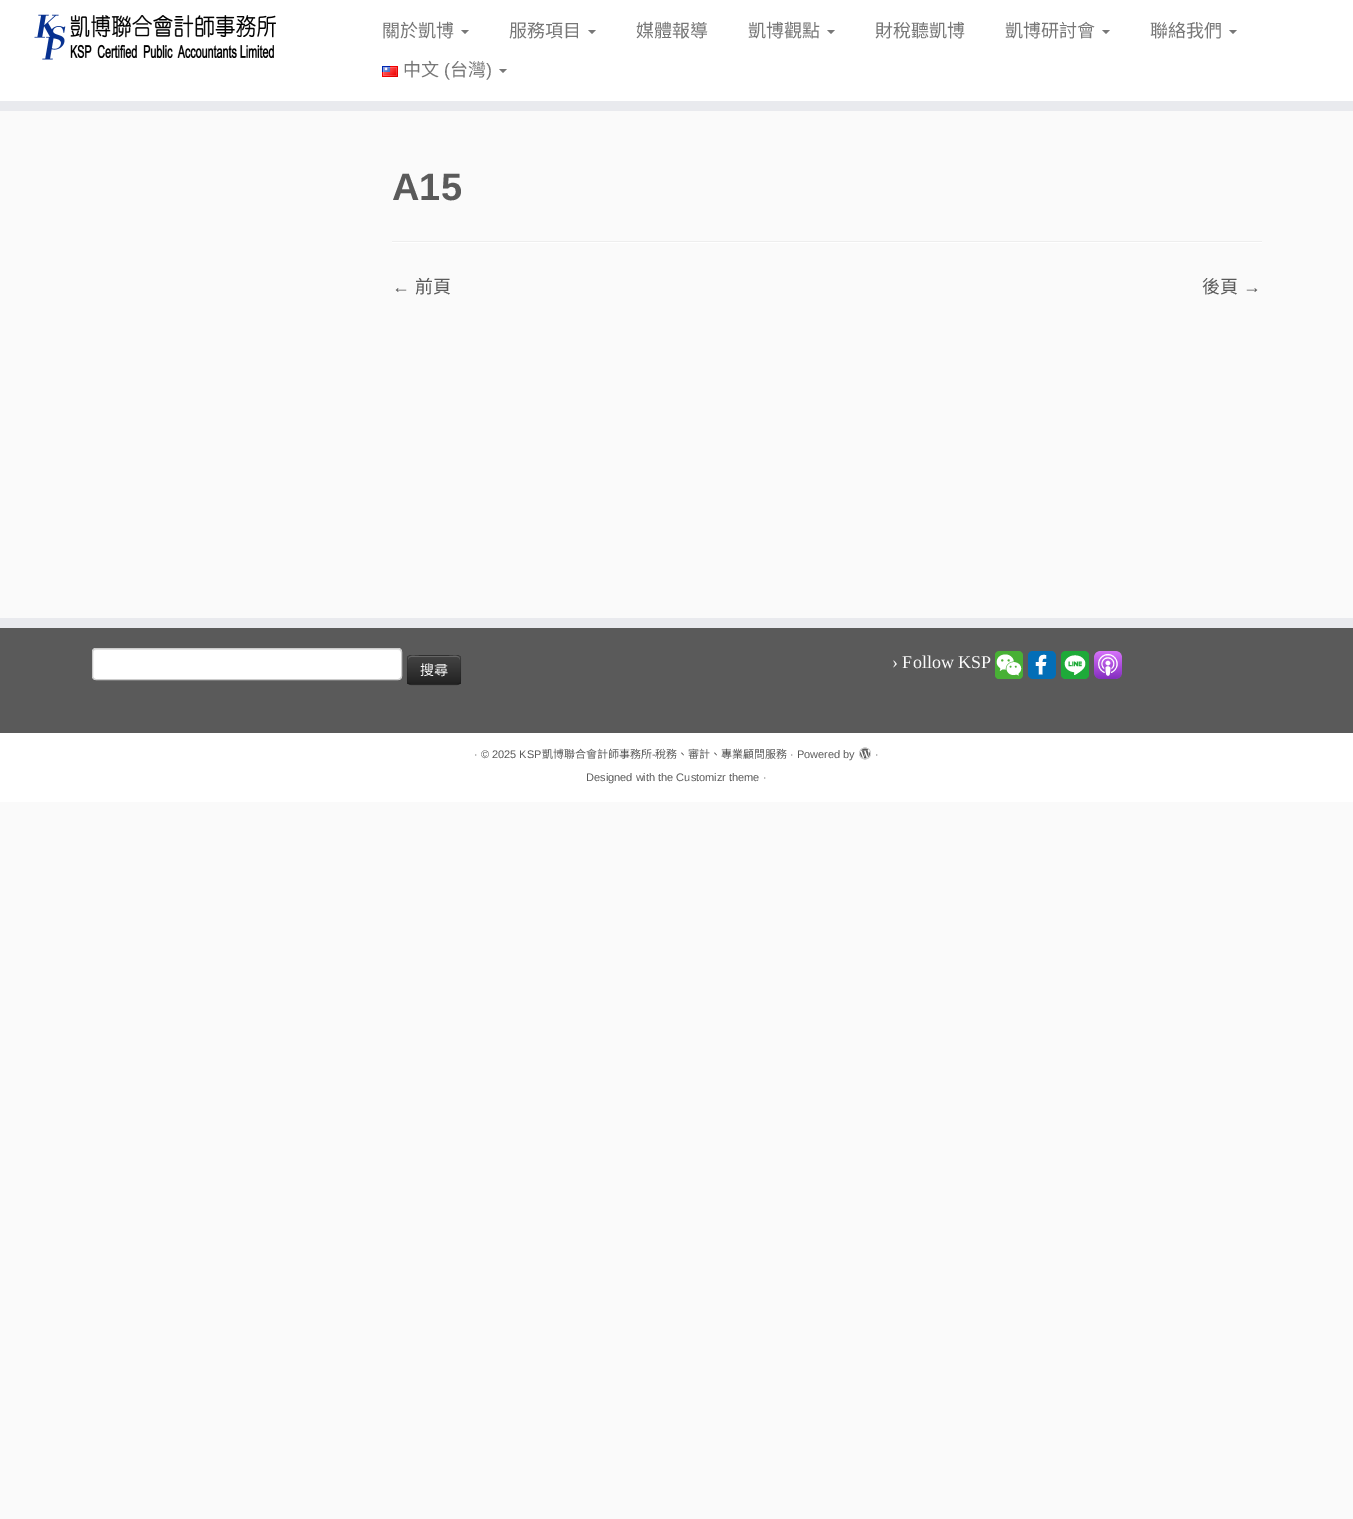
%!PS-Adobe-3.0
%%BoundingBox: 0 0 1353 1519
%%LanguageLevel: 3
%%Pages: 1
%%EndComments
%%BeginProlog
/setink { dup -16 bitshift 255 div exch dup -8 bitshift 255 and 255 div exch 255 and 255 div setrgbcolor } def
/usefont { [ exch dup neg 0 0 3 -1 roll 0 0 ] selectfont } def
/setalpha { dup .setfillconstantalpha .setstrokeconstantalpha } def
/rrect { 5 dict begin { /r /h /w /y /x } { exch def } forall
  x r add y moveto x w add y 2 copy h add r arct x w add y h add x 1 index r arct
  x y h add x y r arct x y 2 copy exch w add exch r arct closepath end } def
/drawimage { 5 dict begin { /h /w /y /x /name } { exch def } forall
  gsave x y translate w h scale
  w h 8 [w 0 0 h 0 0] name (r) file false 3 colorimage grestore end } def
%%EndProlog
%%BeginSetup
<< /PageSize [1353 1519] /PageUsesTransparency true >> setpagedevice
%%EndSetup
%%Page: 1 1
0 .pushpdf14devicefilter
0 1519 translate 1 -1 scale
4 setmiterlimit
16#FAFAFA setink
0 0 1353 1519 rectfill
16#FFFFFF setink
0 0 1353 101 rectfill
16#E9EAEE setink
0 101 1353 10 rectfill
(img1.raw) 34 14 242 46 drawimage
/NotoSansCJKTC-Regular 18 usefont
16#777777 setink
382 37 moveto (關於凱博) show
461 30 moveto 469 30 lineto 465 34 lineto closepath fill
509 37 moveto (服務項目) show
588 30 moveto 596 30 lineto 592 34 lineto closepath fill
636 37 moveto (媒體報導) show
748 37 moveto (凱博觀點) show
827 30 moveto 835 30 lineto 831 34 lineto closepath fill
875 37 moveto (財稅聽凱博) show
1005 37 moveto (凱博研討會) show
1102 30 moveto 1110 30 lineto 1106 34 lineto closepath fill
1150 37 moveto (聯絡我們) show
1229 30 moveto 1237 30 lineto 1233 34 lineto closepath fill
(img2.raw) 382 66 16 11 drawimage
403 76 moveto (中文) show
/LiberationSans-Regular 18 usefont
444 76 moveto (\() show
/NotoSansCJKTC-Regular 18 usefont
450 76 moveto (台灣) show
/LiberationSans-Regular 18 usefont
486 76 moveto (\)) show
499 69 moveto 507 69 lineto 503 73 lineto closepath fill
/LiberationSans-Bold 38 usefont
16#5A5A5A setink
392 200 moveto (A15) show
16#EEEEEE setink
392 241 870 1 rectfill
16#FFFFFF setink
392 242 870 1 rectfill
/LiberationSans-Regular 18 usefont
16#5A5A5A setink
392 293 moveto (←) show
/NotoSansCJKTC-Regular 18 usefont
415 293 moveto (前頁) show
1202 293 moveto (後頁) show
/LiberationSans-Regular 18 usefont
1243 293 moveto (→) show
0 628 1353 105 rectfill
16#E9EAEE setink
0 618 1353 10 rectfill
16#FFFFFF setink
92 648 310 32 4 rrect fill
16#ECECEC setink
96 650 moveto 398 650 lineto 400 650 401 651 401 653 curveto 400 650 lineto 399 649 lineto 96 649 lineto 94 649 93 651 93 653 curveto 93 651 94 650 96 650 curveto closepath fill
16#CCCCCC setink
92.5 648.5 309 31 3.5 rrect stroke
16#363636 setink
407 655 54 30 4 rrect fill
gsave
407 655 54 30 4 rrect clip newpath
gsave 407 656 moveto 461 656 lineto 461 684 lineto 407 684 lineto closepath clip newpath
<< /ShadingType 2 /ColorSpace /DeviceRGB /Coords [434 656 434 684] /Extend [true true] /Function << /FunctionType 2 /Domain [0 1] /C0 [0.267 0.267 0.267] /C1 [0.133 0.133 0.133] /N 1 >> >> shfill grestore
grestore
16#696969 setink
411 657 moveto 457 657 lineto 459 657 460 658 460 660 curveto 460 654 454 656 449 656 curveto 419 656 lineto 414 656 408 654 408 660 curveto 408 658 409 657 411 657 curveto closepath fill
0.25 setalpha
16#000000 setink
459.5 683.5 moveto 459 684 458 684.5 457 684.5 curveto 411 684.5 lineto 410 684.5 409 684 408.5 683.5 curveto stroke
0.1 setalpha
408.5 683.5 moveto 406.5 681.5 407.5 673 407.5 670 curveto 407.5 655.5 404.5 655.5 418.5 655.5 curveto 449.5 655.5 lineto 463.5 655.5 460.5 655.5 460.5 670 curveto 460.5 673 461.5 681.5 459.5 683.5 curveto stroke
/NotoSansCJKTC-Regular 14 usefont
1 setalpha
16#FAFAFA setink
420 675 moveto (搜尋) show
/LiberationSerif-Regular 18 usefont
892 668 moveto (› Follow KSP) show
(img3.raw) 995 651 28 28 drawimage
(img4.raw) 1028 651 28 28 drawimage
(img5.raw) 1061 651 28 28 drawimage
(img6.raw) 1094 651 28 28 drawimage
16#FFFFFF setink
0 733 1353 69 rectfill
/LiberationSans-Regular 11 usefont
16#5A5A5A setink
474 758 moveto (· © 2025 KSP) show
/NotoSansCJKTC-Regular 11 usefont
542 758 moveto (凱博聯合會計師事務所) show
/LiberationSans-Regular 11 usefont
652 758 moveto (-) show
/NotoSansCJKTC-Regular 11 usefont
655 758 moveto (稅務、審計、專業顧問服務) show
/LiberationSans-Regular 11 usefont
790 758 moveto (· Powered by) show
(img7.raw) 859 747 12 13 drawimage
875 758 moveto (·) show
586 781 moveto (Designed with the Customizr theme ·) show
.poppdf14devicefilter showpage
%%EOF
